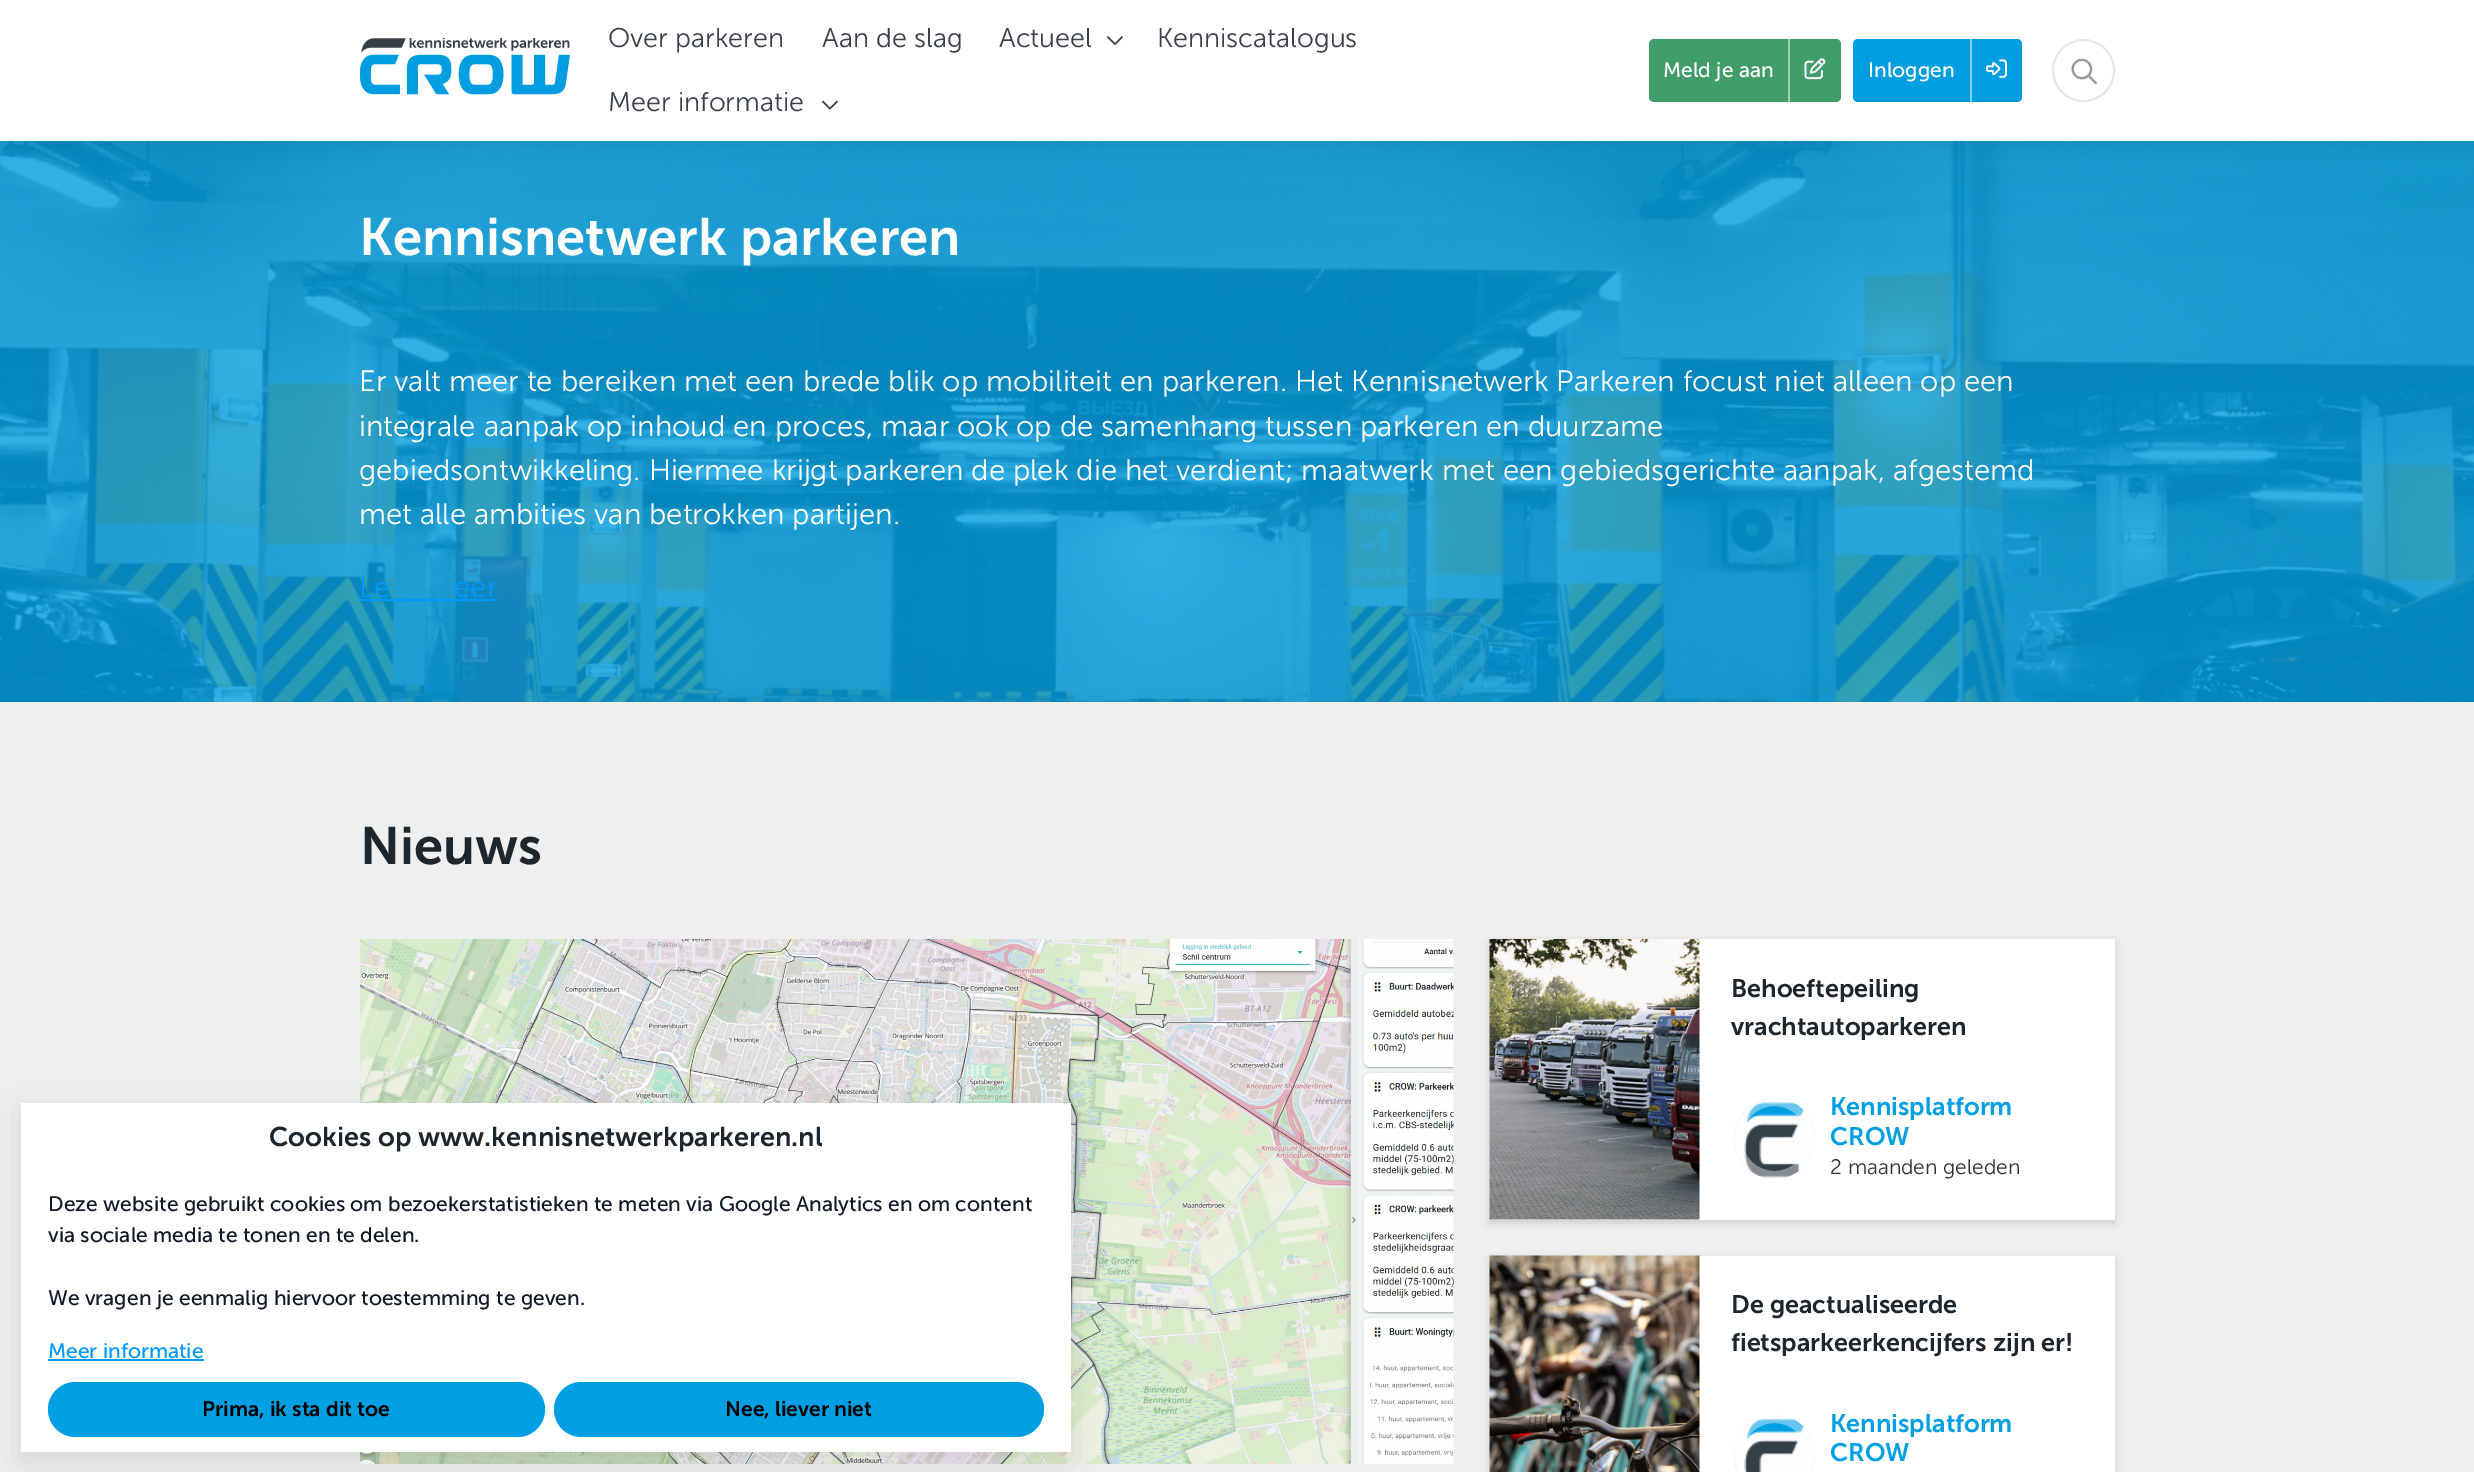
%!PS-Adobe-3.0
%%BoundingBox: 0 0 2474 1472
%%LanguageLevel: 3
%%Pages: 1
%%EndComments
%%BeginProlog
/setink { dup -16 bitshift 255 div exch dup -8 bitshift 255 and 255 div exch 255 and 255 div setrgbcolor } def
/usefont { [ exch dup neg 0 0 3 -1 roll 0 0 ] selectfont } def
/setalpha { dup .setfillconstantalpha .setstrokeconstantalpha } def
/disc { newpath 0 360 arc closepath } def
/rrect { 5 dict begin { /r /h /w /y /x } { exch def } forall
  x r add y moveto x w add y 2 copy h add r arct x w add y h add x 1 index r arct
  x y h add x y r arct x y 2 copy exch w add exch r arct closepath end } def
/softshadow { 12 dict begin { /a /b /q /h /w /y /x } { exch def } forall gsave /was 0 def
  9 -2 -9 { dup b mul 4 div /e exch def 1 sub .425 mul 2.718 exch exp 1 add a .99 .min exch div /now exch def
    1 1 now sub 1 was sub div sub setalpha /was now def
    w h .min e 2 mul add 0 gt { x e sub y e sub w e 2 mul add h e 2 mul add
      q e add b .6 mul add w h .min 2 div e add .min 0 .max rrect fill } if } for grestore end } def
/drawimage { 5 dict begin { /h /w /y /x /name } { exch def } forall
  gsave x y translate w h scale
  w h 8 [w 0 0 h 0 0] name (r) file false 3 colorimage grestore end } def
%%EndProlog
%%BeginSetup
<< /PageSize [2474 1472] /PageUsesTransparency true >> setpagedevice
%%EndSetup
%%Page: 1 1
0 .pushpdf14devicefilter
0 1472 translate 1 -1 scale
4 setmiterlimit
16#EFEFEF setink
0 0 2474 1472 rectfill
(img7.raw) 0 141 2474 561 drawimage
16#000000 setink
0 0 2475 141 0 9 0.08 softshadow
16#FFFFFF setink
0 0 2474 141 rectfill
(img1.raw) 360 38 210 57 drawimage
/MuseoSans-Light 27 usefont
16#39404A setink
[
    [(Over parkeren) 608 47]
    [(Aan de slag) 822 47]
    [(Actueel) 999 47]
] { aload pop moveto show } forall
(img2.raw) 1107 36 16 9 drawimage
1157 47 moveto (Kenniscatalogus) show
608 111 moveto (Meer informatie) show
(img3.raw) 822 100 16 10 drawimage
16#409D69 setink
1649 39 192 63 5 rrect fill
/MuseoSans-Regular 21 usefont
16#FFFFFF setink
1663 77 moveto (Meld je aan) show
16#A0CEB4 setink
1788 39 2 63 rectfill
(img4.raw) 1804 58 22 22 drawimage
16#009DE0 setink
1853 39 169 63 5 rrect fill
16#FFFFFF setink
1868 77 moveto (Inloggen) show
16#80CEF0 setink
1970 39 2 63 rectfill
(img5.raw) 1986 59 21 19 drawimage
16#E6E6E6 setink
2 setlinewidth
2083.5 70.5 30.5 disc stroke
(img6.raw) 2071 58 26 27 drawimage
/MuseoSans-SemiBold 52.5 usefont
16#FFFFFF setink
359 255 moveto (Kennisnetwerk parkeren) show
/MuseoSans-Light 29.4 usefont
[
    [(Er valt meer te bereiken met een brede blik op mobiliteit en parkeren. Het Kennisnetwerk Parkeren focust niet alleen op een) 359 391]
    [(integrale aanpak op inhoud en proces, maar ook op de samenhang tussen parkeren en duurzame) 359 436]
    [(gebiedsontwikkeling. Hiermee krijgt parkeren de plek die het verdient; maatwerk met een gebiedsgerichte aanpak, afgestemd) 359 480]
    [(met alle ambities van betrokken partijen.) 359 524]
] { aload pop moveto show } forall
16#0099FF setink
359 597 moveto (Le) show
454 597 moveto (eer) show
359 599 138 2 rectfill
/MuseoSans-SemiBold 52.5 usefont
16#1D252D setink
360 864 moveto (Nieuws) show
(img8.raw) 360 939 1094 525 drawimage
16#000000 setink
1490 942 625 281 0 4 0.15 softshadow
16#FFFFFF setink
1490 939 625 281 rectfill
(img9.raw) 1489 939 211 281 drawimage
/MuseoSans-SemiBold 25.25 usefont
16#1D252D setink
1731 997 moveto (Behoeftepeiling) show
1731 1035 moveto (vrachtautoparkeren) show
16#CCCCCC setink
1774.5 1138.5 40.5 disc fill
(img10.raw) 1734 1098 81 81 drawimage
0.4 setalpha
16#FFFFFF setink
8 setlinewidth
1774.5 1138.5 36.5 disc stroke
1 setalpha
16#009FE3 setink
1830 1115 moveto (Kennisplatform) show
1830 1145 moveto (CROW) show
/MuseoSans-Light 21 usefont
16#333333 setink
1830 1174 moveto (2 maanden geleden) show
16#000000 setink
1490 1259 625 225 0 4 0.15 softshadow
16#FFFFFF setink
1699 1256 416 216 rectfill
(img11.raw) 1489 1255 211 217 drawimage
/MuseoSans-SemiBold 25.25 usefont
16#1D252D setink
1731 1313 moveto (De geactualiseerde) show
1731 1351 moveto (fietsparkeerkencijfers zijn er!) show
16#CCCCCC setink
1774.5 1455.5 40.5 disc fill
(img12.raw) 1734 1415 81 57 drawimage
0.4 setalpha
16#FFFFFF setink
1774.5 1455.5 36.5 disc stroke
1 setalpha
16#009FE3 setink
1830 1432 moveto (Kennisplatform) show
1830 1461 moveto (CROW) show
16#000000 setink
21 1112 1050 349 0 15 0.11 softshadow
16#FFFFFF setink
21 1103 1050 349 rectfill
/MuseoSans-SemiBold 27 usefont
16#1D252D setink
269 1146 moveto (Cookies op www.kennisnetwerkparkeren.nl) show
/MuseoSans-Regular 21 usefont
16#111827 setink
[
    [(Deze website gebruikt cookies om bezoekerstatistieken te meten via Google Analytics en om content) 48 1211]
    [(via sociale media te tonen en te delen.) 48 1242]
    [(We vragen je eenmalig hiervoor toestemming te geven.) 48 1305]
] { aload pop moveto show } forall
16#0099FF setink
48 1358 moveto (Meer informatie) show
48 1359 156 2 rectfill
16#009FE3 setink
48 1382 497 55 27.5 rrect fill
/MuseoSans-SemiBold 21 usefont
16#000000 setink
202 1416 moveto (Prima, ik sta dit toe) show
16#009FE3 setink
554 1382 490 55 27.5 rrect fill
16#000000 setink
725 1416 moveto (Nee, liever niet) show
.poppdf14devicefilter showpage
%%EOF
